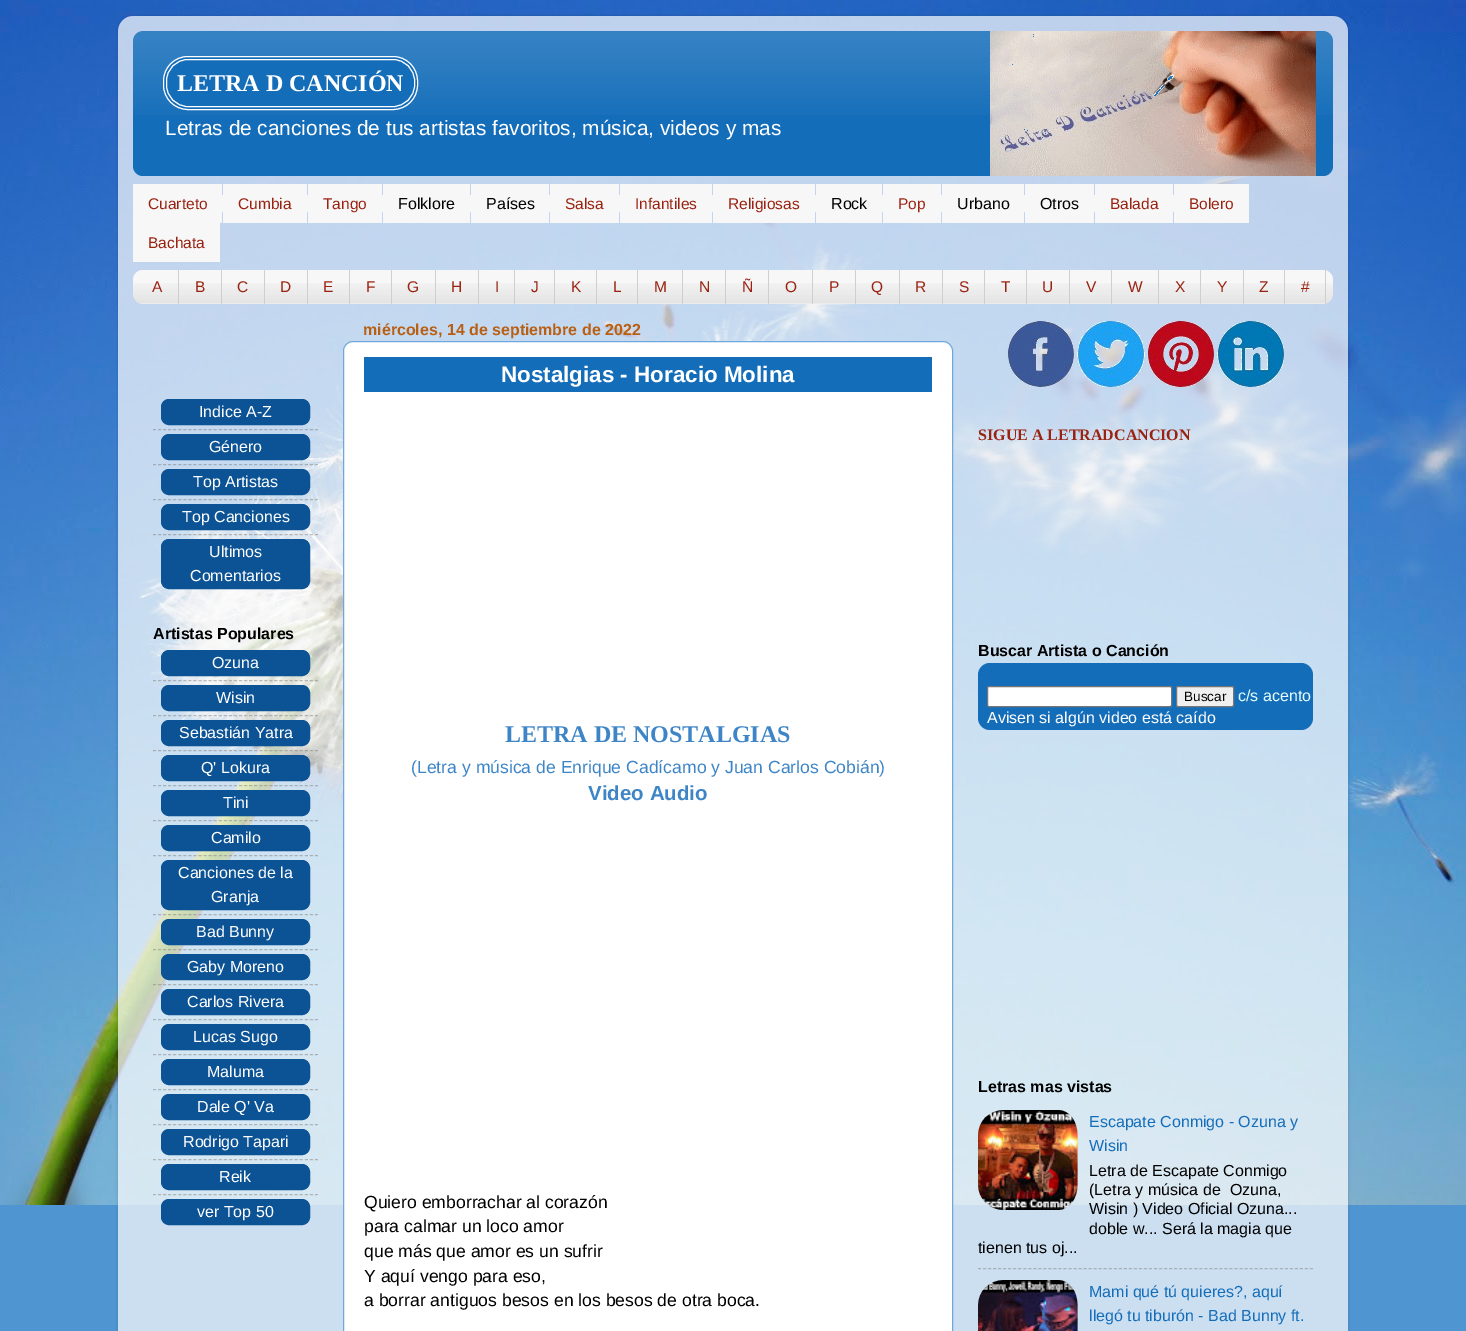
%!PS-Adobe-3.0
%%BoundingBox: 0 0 1466 1331
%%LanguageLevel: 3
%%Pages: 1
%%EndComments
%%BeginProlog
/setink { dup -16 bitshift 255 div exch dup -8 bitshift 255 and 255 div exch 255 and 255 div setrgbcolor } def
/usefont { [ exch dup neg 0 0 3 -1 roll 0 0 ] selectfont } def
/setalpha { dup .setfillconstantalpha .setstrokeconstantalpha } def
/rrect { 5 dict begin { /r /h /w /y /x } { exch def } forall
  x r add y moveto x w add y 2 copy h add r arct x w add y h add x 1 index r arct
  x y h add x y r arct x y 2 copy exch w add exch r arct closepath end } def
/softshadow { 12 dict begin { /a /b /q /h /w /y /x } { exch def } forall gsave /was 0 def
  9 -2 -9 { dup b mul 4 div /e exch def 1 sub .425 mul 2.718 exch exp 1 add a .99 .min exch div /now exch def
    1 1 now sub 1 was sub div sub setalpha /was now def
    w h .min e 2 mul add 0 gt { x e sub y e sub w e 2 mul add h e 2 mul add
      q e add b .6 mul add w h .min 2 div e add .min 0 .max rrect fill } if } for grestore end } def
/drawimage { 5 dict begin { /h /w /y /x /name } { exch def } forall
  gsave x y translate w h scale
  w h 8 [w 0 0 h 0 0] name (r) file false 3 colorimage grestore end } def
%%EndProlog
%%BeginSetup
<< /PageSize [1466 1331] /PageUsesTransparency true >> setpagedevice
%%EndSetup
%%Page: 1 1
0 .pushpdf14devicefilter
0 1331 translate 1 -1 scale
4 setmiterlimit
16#4F95D1 setink
0 0 1466 1331 rectfill
(img1.raw) 0 0 1466 1205 drawimage
gsave
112 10 moveto 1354 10 lineto 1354 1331 lineto 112 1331 lineto closepath 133 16 moveto 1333 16 lineto 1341.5 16 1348 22.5 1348 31 curveto 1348 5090 lineto 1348 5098.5 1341.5 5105 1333 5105 curveto 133 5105 lineto 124.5 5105 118 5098.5 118 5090 curveto 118 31 lineto 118 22.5 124.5 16 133 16 curveto closepath eoclip newpath
16#000000 setink
118 16 1230 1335 15 1.5 0.15 softshadow
grestore
(img2.raw) 118 16 1230 1315 drawimage
16#146DB9 setink
133 31 1200 145 10 rrect fill
(img3.raw) 133 31 1200 84 drawimage
(img4.raw) 990 31 326 145 drawimage
163.5 56.5 254 53 24.5 rrect gsave fill grestore
16#FFFFFF setink
stroke
166.5 59.5 248 47 21.5 rrect stroke
/LiberationSerif-Bold 24 usefont
177 91 moveto (LETRA D CANCIÓN) show
/LiberationSans-Regular 20.8 usefont
165 135 moveto (Letras de canciones de tus artistas favoritos, música, videos y mas) show
[
    [222 195 1 17 16#F7F7F7]
    [223 184 84 39 16#F7F7F7]
    [307 195 1 17 16#F7F7F7]
    [308 184 74 39 16#F7F7F7]
    [382 195 1 17 16#F7F7F7]
    [383 184 87 39 16#F7F7F7]
    [470 195 1 17 16#F7F7F7]
    [471 184 78 39 16#F7F7F7]
    [549 195 1 17 16#F7F7F7]
    [550 184 69 39 16#F7F7F7]
    [619 195 1 17 16#F7F7F7]
    [620 184 92 39 16#F7F7F7]
    [712 195 1 17 16#F7F7F7]
    [713 184 102 39 16#F7F7F7]
    [815 195 1 17 16#F7F7F7]
    [816 184 66 39 16#F7F7F7]
    [882 195 1 17 16#F7F7F7]
    [883 184 58 39 16#F7F7F7]
    [941 195 1 17 16#F7F7F7]
    [942 184 82 39 16#F7F7F7]
    [1024 195 1 17 16#F7F7F7]
    [1025 184 69 39 16#F7F7F7]
    [1094 195 1 17 16#F7F7F7]
    [1095 184 78 39 16#F7F7F7]
    [1173 195 1 17 16#F7F7F7]
    [1174 184 75 39 16#F7F7F7]
    [133 184 89 39 16#F7F7F7]
] { aload pop setink rectfill } forall
/LiberationSans-Regular 15.5 usefont
16#992211 setink
[
    [(Cuarteto) 148 209]
    [(Cumbia) 238 209]
    [(Tango) 323 209]
] { aload pop moveto show } forall
/LiberationSans-Regular 16 usefont
16#000000 setink
398 209 moveto (Folklore) show
486 209 moveto (Países) show
/LiberationSans-Regular 15.5 usefont
16#992211 setink
[
    [(Salsa) 565 209]
    [(Infantiles) 635 209]
    [(Religiosas) 728 209]
] { aload pop moveto show } forall
/LiberationSans-Regular 16 usefont
16#000000 setink
831 209 moveto (Rock) show
/LiberationSans-Regular 15.5 usefont
16#992211 setink
898 209 moveto (Pop) show
/LiberationSans-Regular 16 usefont
16#000000 setink
957 209 moveto (Urbano) show
1040 209 moveto (Otros) show
/LiberationSans-Regular 15.5 usefont
16#992211 setink
1110 209 moveto (Balada) show
1189 209 moveto (Bolero) show
16#F7F7F7 setink
133 223 87 39 rectfill
16#992211 setink
148 248 moveto (Bachata) show
16#F7F7F7 setink
133 270 1200 34 10 rrect fill
(img5.raw) 133 283 1200 21 drawimage
16#CFCFCF setink
178 270 1 34 rectfill
16#992211 setink
152 292 moveto (A) show
16#CFCFCF setink
221 270 1 34 rectfill
16#992211 setink
195 292 moveto (B) show
16#CFCFCF setink
264 270 1 34 rectfill
16#992211 setink
237 292 moveto (C) show
16#CFCFCF setink
307 270 1 34 rectfill
16#992211 setink
280 292 moveto (D) show
16#CFCFCF setink
349 270 1 34 rectfill
16#992211 setink
323 292 moveto (E) show
16#CFCFCF setink
391 270 1 34 rectfill
16#992211 setink
366 292 moveto (F) show
16#CFCFCF setink
435 270 1 34 rectfill
16#992211 setink
407 292 moveto (G) show
16#CFCFCF setink
478 270 1 34 rectfill
16#992211 setink
451 292 moveto (H) show
16#CFCFCF setink
514 270 1 34 rectfill
16#992211 setink
495 292 moveto (I) show
16#CFCFCF setink
554 270 1 34 rectfill
16#992211 setink
531 292 moveto (J) show
16#CFCFCF setink
596 270 1 34 rectfill
16#992211 setink
571 292 moveto (K) show
16#CFCFCF setink
637 270 1 34 rectfill
16#992211 setink
613 292 moveto (L) show
16#CFCFCF setink
682 270 1 34 rectfill
16#992211 setink
654 292 moveto (M) show
16#CFCFCF setink
725 270 1 34 rectfill
16#992211 setink
699 292 moveto (N) show
16#CFCFCF setink
768 270 1 34 rectfill
16#992211 setink
742 292 moveto (Ñ) show
16#CFCFCF setink
812 270 1 34 rectfill
16#992211 setink
785 292 moveto (O) show
16#CFCFCF setink
855 270 1 34 rectfill
16#992211 setink
829 292 moveto (P) show
16#CFCFCF setink
899 270 1 34 rectfill
16#992211 setink
871 292 moveto (Q) show
16#CFCFCF setink
942 270 1 34 rectfill
16#992211 setink
915 292 moveto (R) show
16#CFCFCF setink
984 270 1 34 rectfill
16#992211 setink
959 292 moveto (S) show
16#CFCFCF setink
1026 270 1 34 rectfill
16#992211 setink
1001 292 moveto (T) show
16#CFCFCF setink
1069 270 1 34 rectfill
16#992211 setink
1042 292 moveto (U) show
16#CFCFCF setink
1111 270 1 34 rectfill
16#992211 setink
1086 292 moveto (V) show
16#CFCFCF setink
1158 270 1 34 rectfill
16#992211 setink
1128 292 moveto (W) show
16#CFCFCF setink
1200 270 1 34 rectfill
16#992211 setink
1175 292 moveto (X) show
16#CFCFCF setink
1243 270 1 34 rectfill
16#992211 setink
1217 292 moveto (Y) show
16#CFCFCF setink
1284 270 1 34 rectfill
16#992211 setink
1259 292 moveto (Z) show
16#CFCFCF setink
1325 270 1 34 rectfill
16#992211 setink
1301 292 moveto (#) show
16#0B5394 setink
161.5 399.5 148 25 7.5 rrect gsave fill grestore
stroke
/LiberationSans-Regular 16 usefont
16#FFFFFF setink
199 417 moveto (Indice A-Z) show
0.5 setalpha
16#808080 setink
[3 2.06] 0 setdash
153 429.5 moveto 318 429.5 lineto stroke
1 setalpha
16#0B5394 setink
161.5 434.5 148 25 7.5 rrect gsave fill grestore
[] 0 setdash
stroke
16#FFFFFF setink
209 452 moveto (Género) show
0.5 setalpha
16#808080 setink
[3 2.06] 0 setdash
153 464.5 moveto 318 464.5 lineto stroke
1 setalpha
16#0B5394 setink
161.5 469.5 148 25 7.5 rrect gsave fill grestore
[] 0 setdash
stroke
16#FFFFFF setink
193 487 moveto (Top Artistas) show
0.5 setalpha
16#808080 setink
[3 2.06] 0 setdash
153 499.5 moveto 318 499.5 lineto stroke
1 setalpha
16#0B5394 setink
161.5 504.5 148 25 7.5 rrect gsave fill grestore
[] 0 setdash
stroke
16#FFFFFF setink
182 522 moveto (Top Canciones) show
0.5 setalpha
16#808080 setink
[3 2.06] 0 setdash
153 534.5 moveto 318 534.5 lineto stroke
1 setalpha
16#0B5394 setink
161.5 539.5 148 49 7.5 rrect gsave fill grestore
[] 0 setdash
stroke
16#FFFFFF setink
209 557 moveto (Ultimos) show
190 581 moveto (Comentarios) show
/LiberationSans-Bold 16 usefont
16#000000 setink
153 639 moveto (Artistas Populares) show
16#0B5394 setink
161.5 650.5 148 25 7.5 rrect gsave fill grestore
stroke
/LiberationSans-Regular 16 usefont
16#FFFFFF setink
212 668 moveto (Ozuna) show
0.5 setalpha
16#808080 setink
[3 2.06] 0 setdash
153 680.5 moveto 318 680.5 lineto stroke
1 setalpha
16#0B5394 setink
161.5 685.5 148 25 7.5 rrect gsave fill grestore
[] 0 setdash
stroke
16#FFFFFF setink
216 703 moveto (Wisin) show
0.5 setalpha
16#808080 setink
[3 2.06] 0 setdash
153 715.5 moveto 318 715.5 lineto stroke
1 setalpha
16#0B5394 setink
161.5 720.5 148 25 7.5 rrect gsave fill grestore
[] 0 setdash
stroke
16#FFFFFF setink
179 738 moveto (Sebastián Yatra) show
0.5 setalpha
16#808080 setink
[3 2.06] 0 setdash
153 750.5 moveto 318 750.5 lineto stroke
1 setalpha
16#0B5394 setink
161.5 755.5 148 25 7.5 rrect gsave fill grestore
[] 0 setdash
stroke
16#FFFFFF setink
201 773 moveto (Q' Lokura) show
0.5 setalpha
16#808080 setink
[3 2.06] 0 setdash
153 785.5 moveto 318 785.5 lineto stroke
1 setalpha
16#0B5394 setink
161.5 790.5 148 25 7.5 rrect gsave fill grestore
[] 0 setdash
stroke
16#FFFFFF setink
223 808 moveto (Tini) show
0.5 setalpha
16#808080 setink
[3 2.06] 0 setdash
153 820.5 moveto 318 820.5 lineto stroke
1 setalpha
16#0B5394 setink
161.5 825.5 148 25 7.5 rrect gsave fill grestore
[] 0 setdash
stroke
16#FFFFFF setink
211 843 moveto (Camilo) show
0.5 setalpha
16#808080 setink
[3 2.06] 0 setdash
153 855.5 moveto 318 855.5 lineto stroke
1 setalpha
16#0B5394 setink
161.5 860.5 148 49 7.5 rrect gsave fill grestore
[] 0 setdash
stroke
16#FFFFFF setink
178 878 moveto (Canciones de la) show
211 902 moveto (Granja) show
0.5 setalpha
16#808080 setink
[3 2.06] 0 setdash
153 914.5 moveto 318 914.5 lineto stroke
1 setalpha
16#0B5394 setink
161.5 919.5 148 25 7.5 rrect gsave fill grestore
[] 0 setdash
stroke
16#FFFFFF setink
196 937 moveto (Bad Bunny) show
0.5 setalpha
16#808080 setink
[3 2.06] 0 setdash
153 949.5 moveto 318 949.5 lineto stroke
1 setalpha
16#0B5394 setink
161.5 954.5 148 25 7.5 rrect gsave fill grestore
[] 0 setdash
stroke
16#FFFFFF setink
187 972 moveto (Gaby Moreno) show
0.5 setalpha
16#808080 setink
[3 2.06] 0 setdash
153 984.5 moveto 318 984.5 lineto stroke
1 setalpha
16#0B5394 setink
161.5 989.5 148 25 7.5 rrect gsave fill grestore
[] 0 setdash
stroke
16#FFFFFF setink
187 1007 moveto (Carlos Rivera) show
16#A9B3B9 setink
[3 2.06] 0 setdash
153 1019.5 moveto 318 1019.5 lineto stroke
16#0B5394 setink
161.5 1024.5 148 25 7.5 rrect gsave fill grestore
[] 0 setdash
stroke
16#FFFFFF setink
193 1042 moveto (Lucas Sugo) show
16#AAB3B9 setink
[3 2.06] 0 setdash
153 1054.5 moveto 318 1054.5 lineto stroke
16#0B5394 setink
161.5 1059.5 148 25 7.5 rrect gsave fill grestore
[] 0 setdash
stroke
16#FFFFFF setink
207 1077 moveto (Maluma) show
16#ABB4B9 setink
[3 2.06] 0 setdash
153 1089.5 moveto 318 1089.5 lineto stroke
16#0B5394 setink
161.5 1094.5 148 25 7.5 rrect gsave fill grestore
[] 0 setdash
stroke
16#FFFFFF setink
197 1112 moveto (Dale Q' Va) show
16#ABB4B9 setink
[3 2.06] 0 setdash
153 1124.5 moveto 318 1124.5 lineto stroke
16#0B5394 setink
161.5 1129.5 148 25 7.5 rrect gsave fill grestore
[] 0 setdash
stroke
16#FFFFFF setink
183 1147 moveto (Rodrigo Tapari) show
0.5 setalpha
16#808080 setink
[3 2.06] 0 setdash
153 1159.5 moveto 318 1159.5 lineto stroke
1 setalpha
16#0B5394 setink
161.5 1164.5 148 25 7.5 rrect gsave fill grestore
[] 0 setdash
stroke
16#FFFFFF setink
219 1182 moveto (Reik) show
0.5 setalpha
16#808080 setink
[3 2.06] 0 setdash
153 1194.5 moveto 318 1194.5 lineto stroke
1 setalpha
16#0B5394 setink
161.5 1199.5 148 25 7.5 rrect gsave fill grestore
[] 0 setdash
stroke
16#FFFFFF setink
197 1217 moveto (ver Top 50) show
/LiberationSans-Bold 16 usefont
16#B95F14 setink
363 335 moveto (miércoles, 14 de septiembre de 2022) show
16#FFFFFF setink
343.5 341.5 609 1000 9.5 rrect gsave fill grestore
16#6FA8DC setink
stroke
16#146DB9 setink
364 357 568 35 rectfill
/LiberationSans-Bold 22.4 usefont
16#FFFFFF setink
501 382 moveto (Nostalgias - Horacio Molina) show
/LiberationSerif-Bold 24 usefont
16#3D85C6 setink
505 742 moveto (LETRA DE NOSTALGIAS) show
/LiberationSans-Regular 17.6 usefont
411 773 moveto (\(Letra y música de Enrique Cadícamo y Juan Carlos Cobián\)) show
/LiberationSans-Bold 20.5 usefont
588 800 moveto (Video Audio) show
/LiberationSans-Regular 17.6 usefont
16#000000 setink
[
    [(Quiero emborrachar al corazón) 364 1208]
    [(para calmar un loco amor) 364 1232]
    [(que más que amor es un sufrir) 364 1257]
    [(Y aquí vengo para eso,) 364 1282]
    [(a borrar antiguos besos en los besos de otra boca.) 364 1306]
] { aload pop moveto show } forall
(img6.raw) 1008 321 66 66 drawimage
(img7.raw) 1077 321 68 66 drawimage
(img8.raw) 1148 321 66 66 drawimage
(img9.raw) 1217 321 67 66 drawimage
/LiberationSerif-Bold 16 usefont
16#992211 setink
978 440 moveto (SIGUE A LETRADCANCION) show
/LiberationSans-Bold 16 usefont
16#000000 setink
978 656 moveto (Buscar Artista o Canción) show
16#146DB9 setink
978 663 335 67 12 rrect fill
16#FFFFFF setink
987.5 686.5 184 20 1.5 rrect gsave fill grestore
16#767676 setink
stroke
16#EFEFEF setink
1176.5 686.5 57 20 1.5 rrect gsave fill grestore
16#767676 setink
stroke
/LiberationSans-Regular 13.5 usefont
16#000000 setink
1184 701 moveto (Buscar) show
/LiberationSans-Regular 16 usefont
16#E5FFFF setink
1238 701 moveto (c/s acento) show
16#FFFFFF setink
987 723 moveto (Avisen si algún video está caído) show
/LiberationSans-Bold 16 usefont
16#000000 setink
978 1092 moveto (Letras mas vistas) show
(img10.raw) 978 1110 100 100 drawimage
/LiberationSans-Regular 16 usefont
16#146DB9 setink
1089 1127 moveto (Escapate Conmigo - Ozuna y) show
1089 1151 moveto (Wisin) show
16#000000 setink
[
    [(Letra de Escapate Conmigo) 1089 1176]
    [(\(Letra y música de  Ozuna,) 1089 1195]
    [(Wisin \) Video Oficial Ozuna...) 1089 1214]
    [(doble w... Será la magia que) 1089 1234]
    [(tienen tus oj...) 978 1253]
] { aload pop moveto show } forall
16#A5B0B9 setink
[3 2.03] 0 setdash
978 1268.5 moveto 1313 1268.5 lineto stroke
(img11.raw) 978 1280 100 51 drawimage
16#146DB9 setink
1089 1297 moveto (Mami qué tú quieres?, aquí) show
1089 1321 moveto (llegó tu tiburón - Bad Bunny ft.) show
.poppdf14devicefilter showpage
%%EOF
